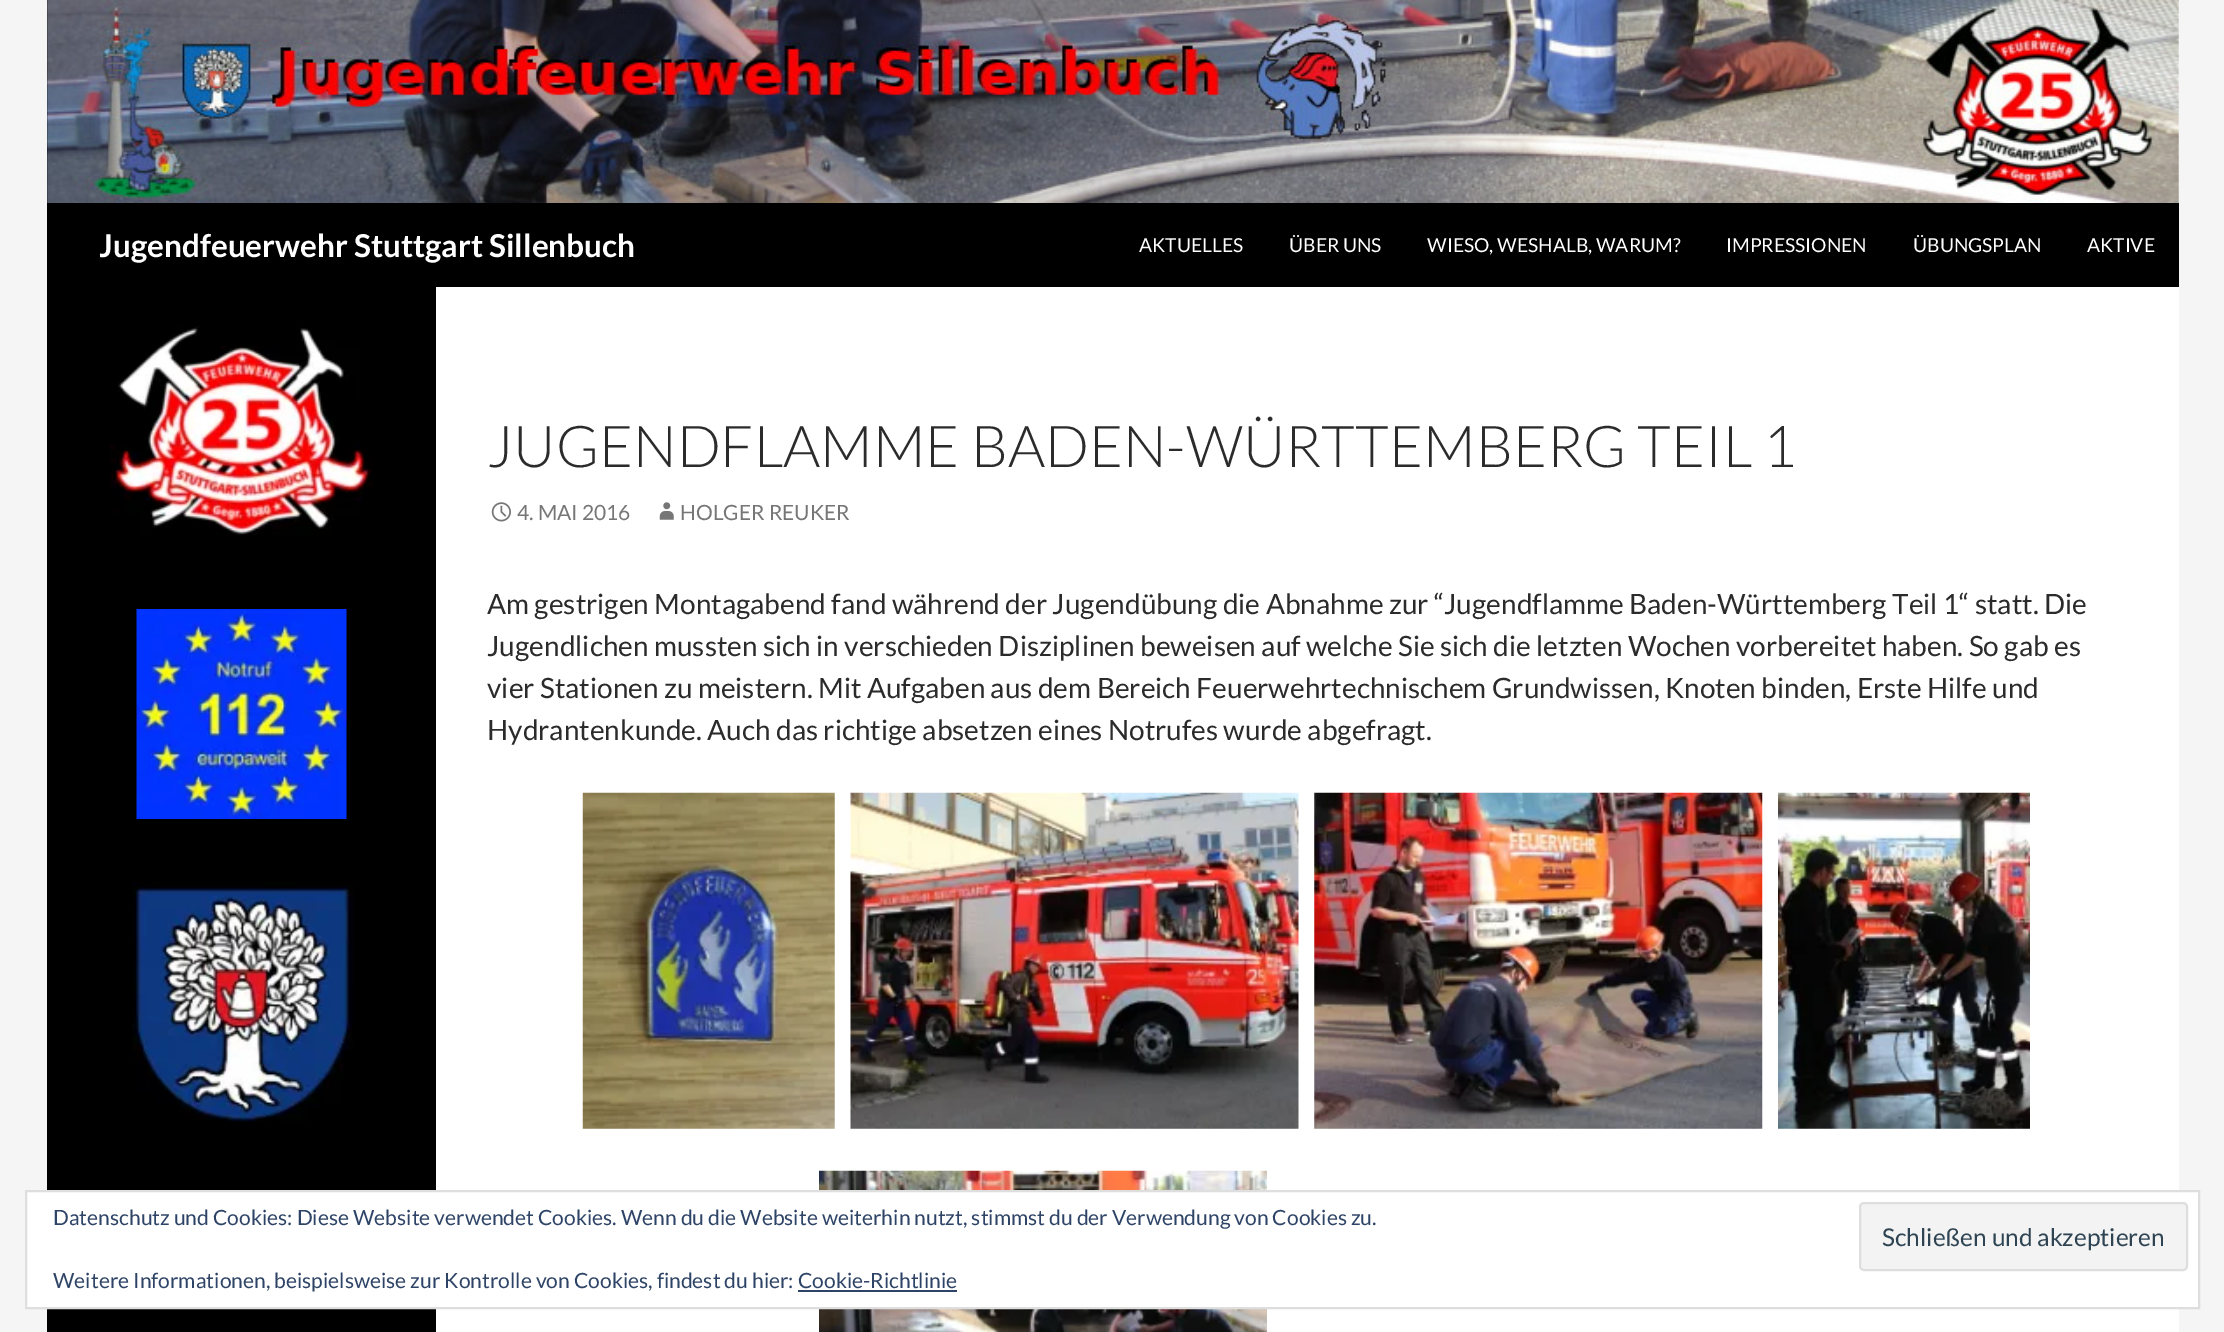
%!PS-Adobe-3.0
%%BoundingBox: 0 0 2224 1332
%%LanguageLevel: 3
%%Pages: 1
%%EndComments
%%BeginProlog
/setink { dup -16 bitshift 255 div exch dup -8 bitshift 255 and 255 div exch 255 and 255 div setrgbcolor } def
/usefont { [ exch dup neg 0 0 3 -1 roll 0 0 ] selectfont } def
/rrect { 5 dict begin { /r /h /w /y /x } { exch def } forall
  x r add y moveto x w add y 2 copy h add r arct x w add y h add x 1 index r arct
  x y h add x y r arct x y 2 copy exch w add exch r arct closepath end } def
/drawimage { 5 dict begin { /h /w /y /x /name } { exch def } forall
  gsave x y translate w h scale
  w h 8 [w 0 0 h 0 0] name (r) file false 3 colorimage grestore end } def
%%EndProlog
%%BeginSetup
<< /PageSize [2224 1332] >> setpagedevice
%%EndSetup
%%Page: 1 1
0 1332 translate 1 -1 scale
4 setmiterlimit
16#F5F5F5 setink
0 0 2224 1332 rectfill
16#FFFFFF setink
436 0 1743 1332 rectfill
16#000000 setink
47 0 389 1332 rectfill
(img1.raw) 47 0 2132 203 drawimage
436 203 1743 84 rectfill
gsave
100 203 535 84 rectclip
/Lato-Bold 31.5 usefont
16#FFFFFF setink
99 257 moveto (Jugendfeuerwehr Stuttgart Sillenbuch) show
grestore
/Lato-Regular 19.25 usefont
16#FFFFFF setink
[
    [(AKTUELLES) 1139 252]
    [(ÜBER UNS) 1289 252]
    [(WIESO, WESHALB, WARUM?) 1427 252]
    [(IMPRESSIONEN) 1726 252]
    [(ÜBUNGSPLAN) 1913 252]
    [(AKTIVE) 2087 252]
] { aload pop moveto show } forall
(img2.raw) 110 326 263 209 drawimage
(img3.raw) 136 609 211 210 drawimage
(img4.raw) 132 882 222 240 drawimage
/Lato-Light 57.75 usefont
16#2B2B2B setink
487 467 moveto (JUGENDFLAMME BADEN-WÜRTTEMBERG TEIL 1) show
(img5.raw) 491 502 20 20 drawimage
/Lato-Regular 21 usefont
16#767676 setink
517 520 moveto (4. MAI 2016) show
(img6.raw) 659 502 15 18 drawimage
680 520 moveto (HOLGER REUKER) show
/Lato-Regular 28 usefont
16#2B2B2B setink
[
    [(Am gestrigen Montagabend fand während der Jugendübung die Abnahme zur “Jugendflamme Baden-Württemberg Teil 1“ statt. Die) 487 614]
    [(Jugendlichen mussten sich in verschieden Disziplinen beweisen auf welche Sie sich die letzten Wochen vorbereitet haben. So gab es) 487 656]
    [(vier Stationen zu meistern. Mit Aufgaben aus dem Bereich Feuerwehrtechnischem Grundwissen, Knoten binden, Erste Hilfe und) 487 698]
    [(Hydrantenkunde. Auch das richtige absetzen eines Notrufes wurde abgefragt.) 487 740]
] { aload pop moveto show } forall
(img7.raw) 582 792 253 337 drawimage
(img8.raw) 850 792 449 337 drawimage
(img9.raw) 1314 792 449 337 drawimage
(img10.raw) 1778 792 252 337 drawimage
(img11.raw) 819 1170 448 162 drawimage
16#FFFFFF setink
26 1191 moveto 2199 1191 lineto 2199 1308 lineto 26 1308 lineto closepath gsave fill grestore
16#DEDEDE setink
2 setlinewidth
stroke
/Lato-Regular 21 usefont
16#2E4467 setink
53 1225 moveto (Datenschutz und Cookies: Diese Website verwendet Cookies. Wenn du die Website weiterhin nutzt, stimmst du der Verwendung von Cookies zu.) show
16#F3F3F3 setink
1860 1203 327 67 4 rrect gsave fill grestore
16#DEDEDE setink
stroke
/Lato-Regular 24.5 usefont
16#2E4453 setink
1882 1246 moveto (Schließen und akzeptieren) show
/Lato-Regular 21 usefont
16#2E4467 setink
53 1288 moveto (Weitere Informationen, beispielsweise zur Kontrolle von Cookies, findest du hier: Cookie-Richtlinie) show
798 1290 159 2 rectfill
showpage
%%EOF
